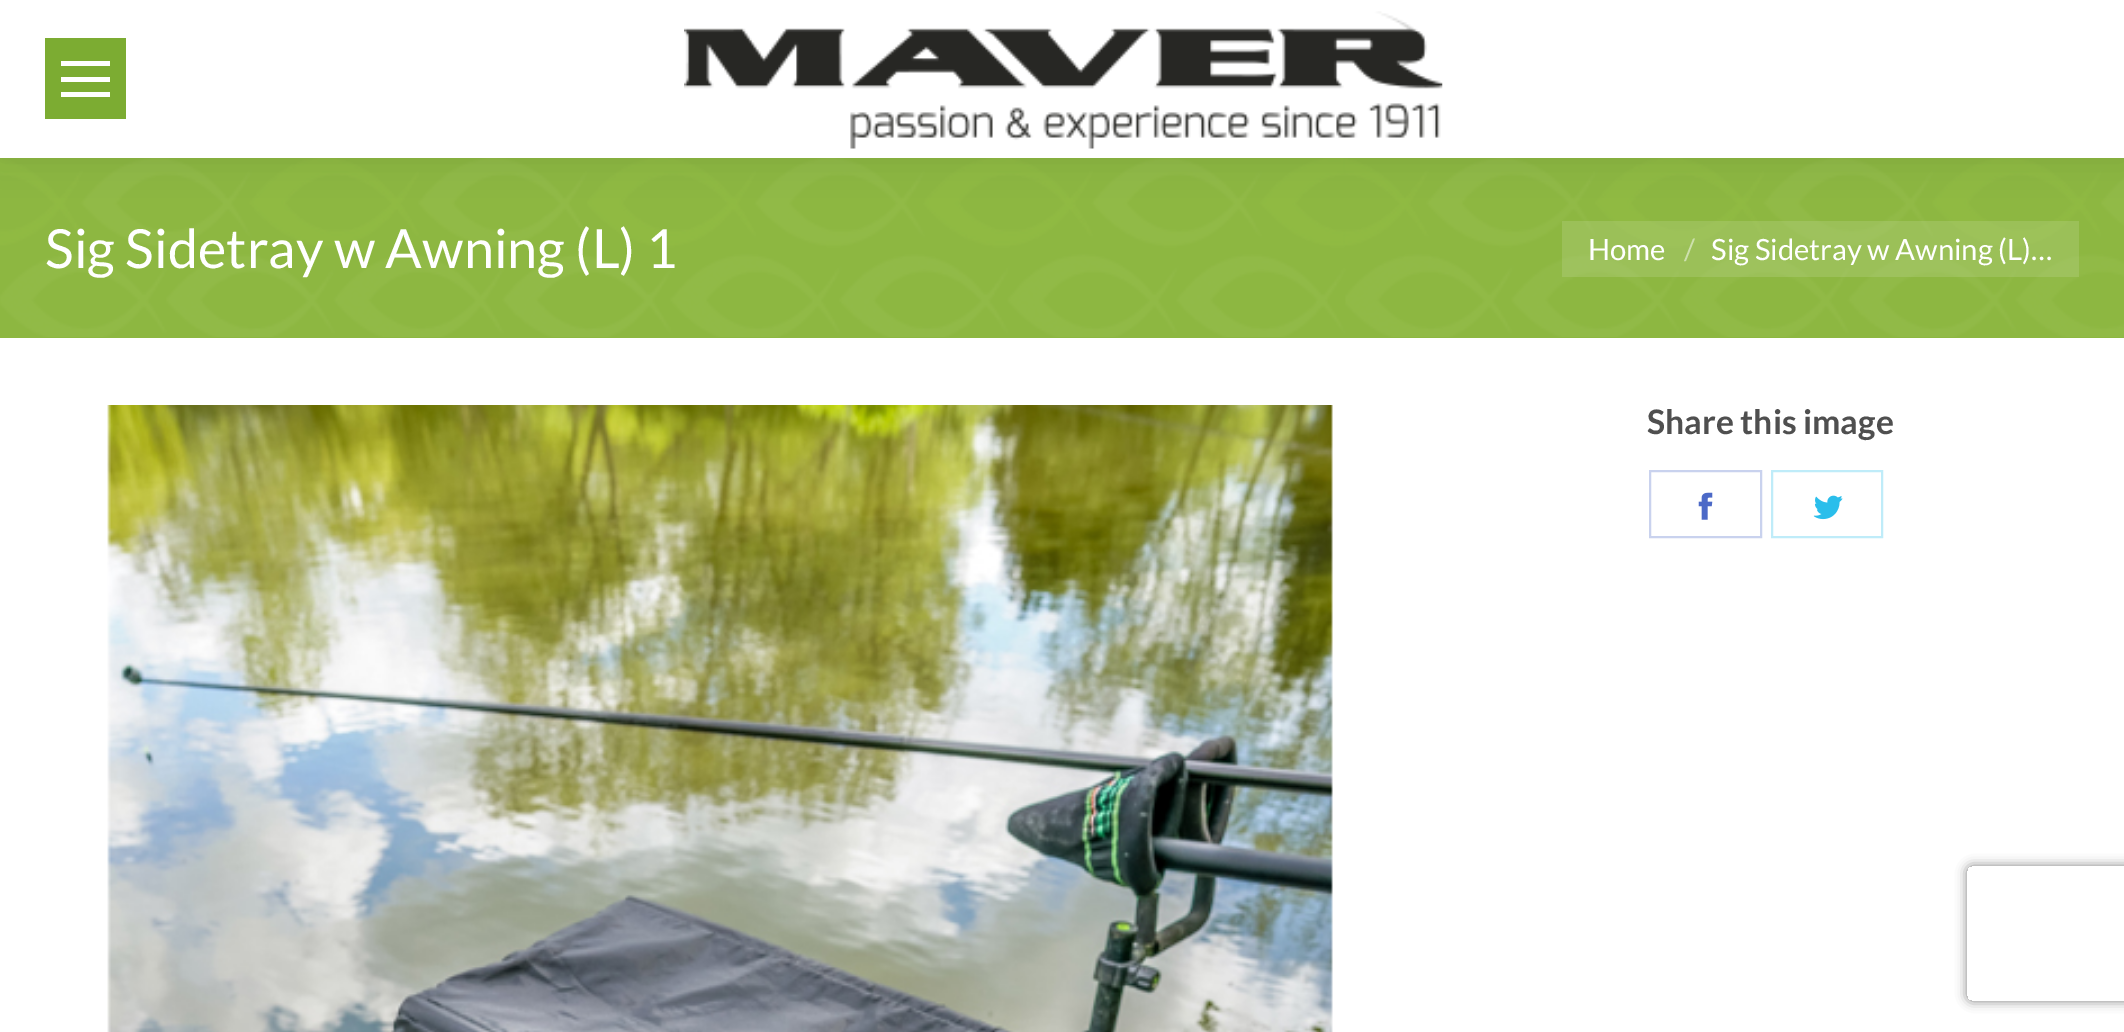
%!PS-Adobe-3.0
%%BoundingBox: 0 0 2124 1032
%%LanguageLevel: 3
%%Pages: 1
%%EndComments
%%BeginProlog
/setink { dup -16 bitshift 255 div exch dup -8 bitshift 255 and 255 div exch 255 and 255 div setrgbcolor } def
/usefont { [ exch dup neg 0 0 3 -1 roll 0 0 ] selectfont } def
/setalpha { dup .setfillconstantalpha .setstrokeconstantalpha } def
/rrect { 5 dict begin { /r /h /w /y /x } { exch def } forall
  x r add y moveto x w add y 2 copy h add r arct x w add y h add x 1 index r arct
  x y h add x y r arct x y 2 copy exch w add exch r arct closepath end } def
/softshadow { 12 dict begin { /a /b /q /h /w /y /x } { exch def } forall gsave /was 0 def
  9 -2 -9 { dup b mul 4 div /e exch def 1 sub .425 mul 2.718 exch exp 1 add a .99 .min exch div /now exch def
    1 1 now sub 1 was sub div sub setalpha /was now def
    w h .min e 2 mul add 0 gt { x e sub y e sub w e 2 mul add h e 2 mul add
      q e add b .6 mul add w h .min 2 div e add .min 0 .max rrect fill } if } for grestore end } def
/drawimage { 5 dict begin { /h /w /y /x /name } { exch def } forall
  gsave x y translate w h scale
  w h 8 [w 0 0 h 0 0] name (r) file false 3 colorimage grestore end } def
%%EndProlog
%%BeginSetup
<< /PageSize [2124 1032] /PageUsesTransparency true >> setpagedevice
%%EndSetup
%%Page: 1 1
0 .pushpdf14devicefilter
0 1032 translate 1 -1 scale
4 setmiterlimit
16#FFFFFF setink
0 0 2124 1032 rectfill
(img2.raw) 0 158 2124 179 drawimage
16#000000 setink
-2 -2 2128 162 0 17 0.07 softshadow
[
    [0 0 2124 158 16#FFFFFF]
    [45 38 81 81 16#7CAC32]
    [61 61 49 5 16#FFFFFF]
    [61 77 49 5 16#FFFFFF]
    [61 92 49 5 16#FFFFFF]
] { aload pop setink rectfill } forall
(img1.raw) 684 11 759 138 drawimage
16#8DB741 setink
0 337 2124 1 rectfill
/Lato-Regular 54 usefont
16#FFFFFF setink
45 268 moveto (Sig Sidetray w Awning \(L\) 1) show
0.12 setalpha
1562 221 517 56 rectfill
/Lato-Regular 29.25 usefont
1 setalpha
1588 260 moveto (Home) show
16#CDE0AC setink
1684 260 moveto (/) show
16#FFFFFF setink
1711 260 moveto (Sig Sidetray w Awning \(L\)…) show
(img3.raw) 107 405 1226 627 drawimage
/Lato-Bold 33.75 usefont
16#4F4F4F setink
1647 434 moveto (Share this image) show
16#C9D2EE setink
2 setlinewidth
1650 471 111 66 rectstroke
(img4.raw) 1698 492 15 28 drawimage
16#BFECF9 setink
1772 471 110 66 rectstroke
(img5.raw) 1813 495 30 25 drawimage
gsave
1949 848 moveto 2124 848 lineto 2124 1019 lineto 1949 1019 lineto closepath 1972 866 moveto 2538 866 lineto 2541 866 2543 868 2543 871 curveto 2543 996 lineto 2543 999 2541 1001 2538 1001 curveto 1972 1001 lineto 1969 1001 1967 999 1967 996 curveto 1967 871 lineto 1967 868 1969 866 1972 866 curveto closepath eoclip newpath
16#808080 setink
1967 866 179 135 5 5.5 1 softshadow
grestore
.poppdf14devicefilter showpage
%%EOF
